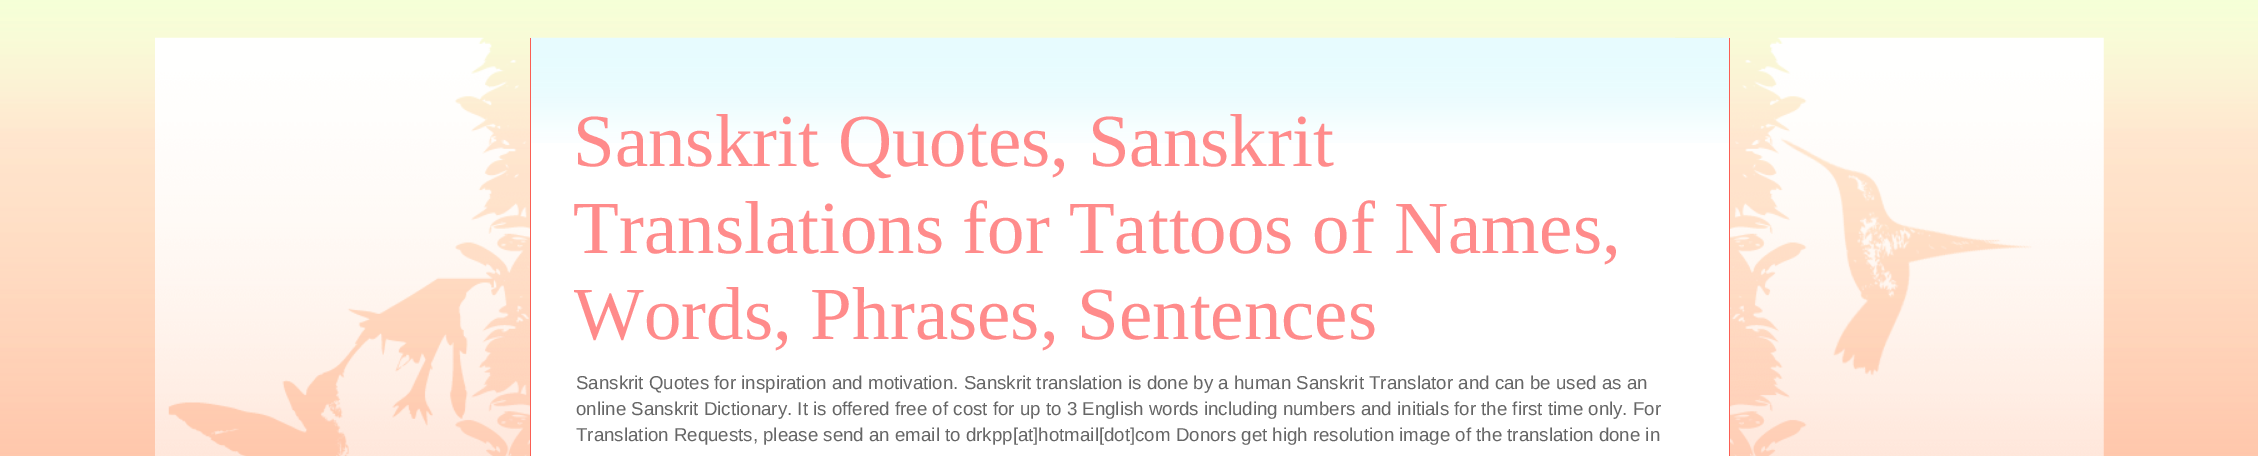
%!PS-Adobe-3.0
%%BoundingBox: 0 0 2258 456
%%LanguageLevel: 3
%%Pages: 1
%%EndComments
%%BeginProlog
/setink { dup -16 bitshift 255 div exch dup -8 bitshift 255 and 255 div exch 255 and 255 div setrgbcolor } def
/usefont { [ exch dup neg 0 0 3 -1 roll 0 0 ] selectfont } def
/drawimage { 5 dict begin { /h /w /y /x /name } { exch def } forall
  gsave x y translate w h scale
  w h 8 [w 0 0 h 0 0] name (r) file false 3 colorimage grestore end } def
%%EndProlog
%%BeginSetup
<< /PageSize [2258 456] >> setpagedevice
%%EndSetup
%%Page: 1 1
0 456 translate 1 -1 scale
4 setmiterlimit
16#FFFFFF setink
0 0 2258 456 rectfill
(img1.raw) 0 0 2258 456 drawimage
(img2.raw) 155 37 1575 419 drawimage
531 38 1198 418 rectfill
(img3.raw) 530 37 1200 106 drawimage
16#FB5E53 setink
1729 38 1 418 rectfill
530 38 1 418 rectfill
(img4.raw) 1730 37 374 419 drawimage
/LiberationSerif-Regular 75 usefont
16#FF8B8B setink
573 166 moveto (Sanskrit Quotes, Sanskrit) show
573 253 moveto (Translations for Tattoos of Names,) show
gsave
574 71 1112 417 rectclip
573 339 moveto (Words, Phrases, Sentences) show
grestore
/LiberationSans-Regular 18.7 usefont
16#666666 setink
[
    [(Sanskrit Quotes for inspiration and motivation. Sanskrit translation is done by a human Sanskrit Translator and can be used as an) 576 389]
    [(online Sanskrit Dictionary. It is offered free of cost for up to 3 English words including numbers and initials for the first time only. For) 576 415]
    [(Translation Requests, please send an email to drkpp[at]hotmail[dot]com Donors get high resolution image of the translation done in) 576 441]
] { aload pop moveto show } forall
showpage
%%EOF
